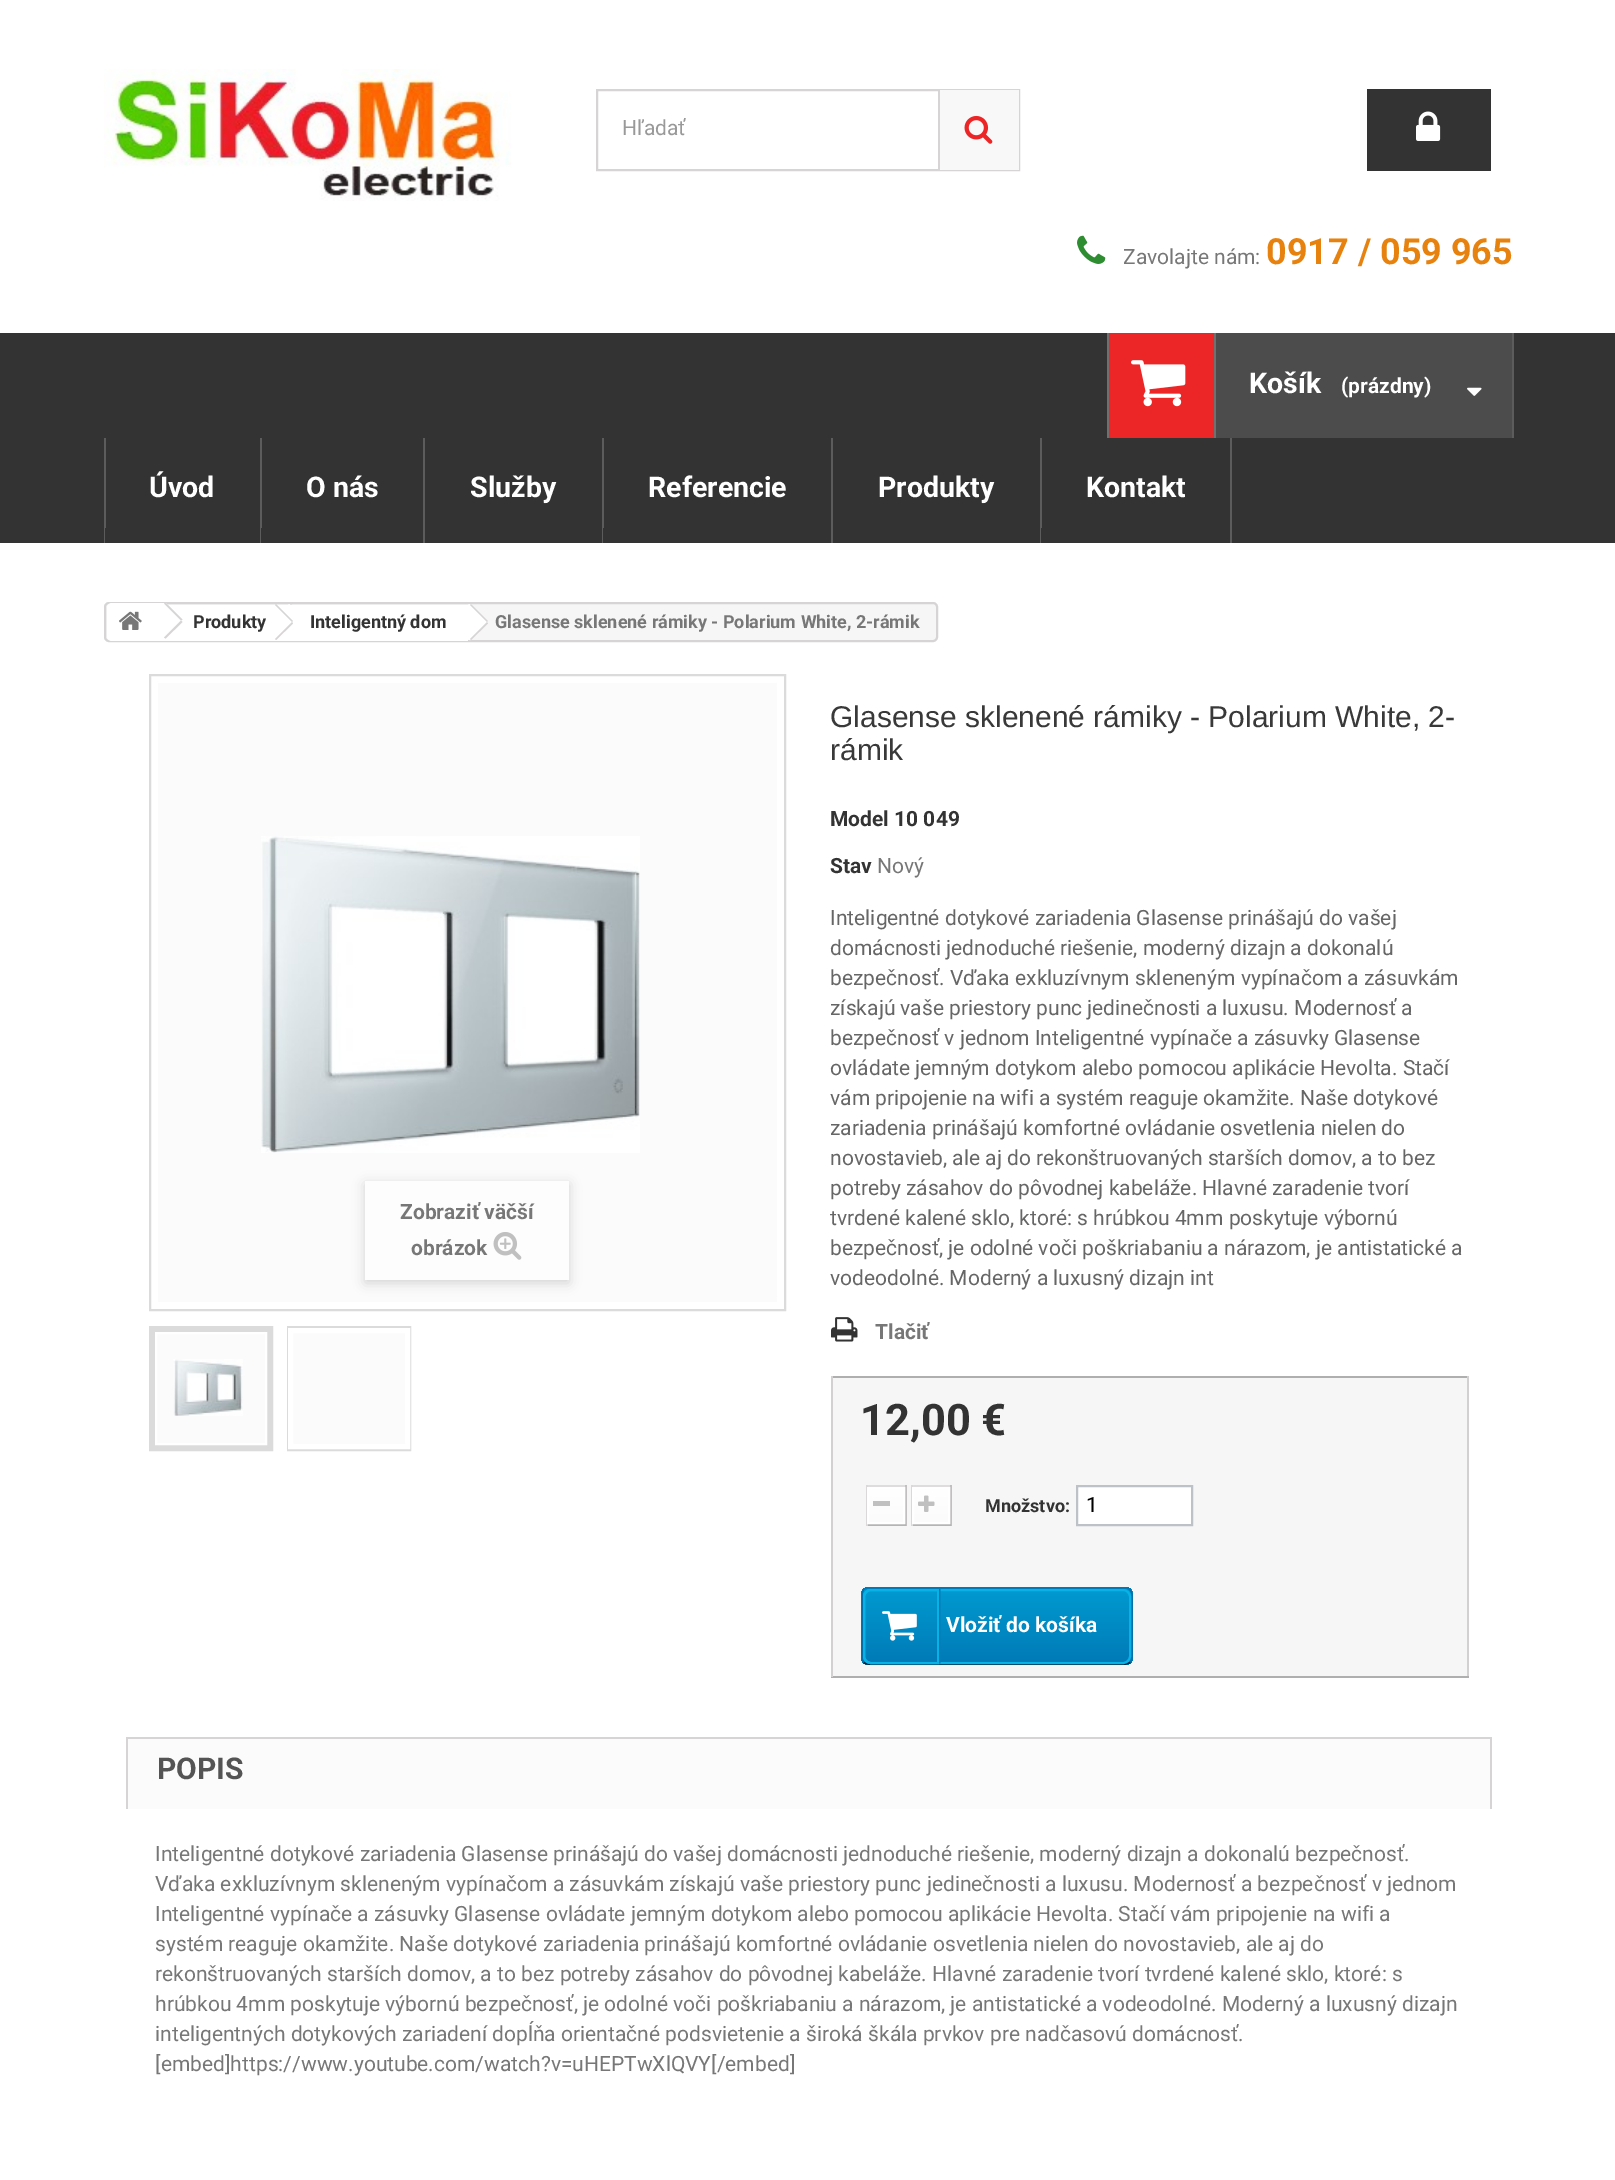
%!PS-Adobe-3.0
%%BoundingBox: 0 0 1615 2180
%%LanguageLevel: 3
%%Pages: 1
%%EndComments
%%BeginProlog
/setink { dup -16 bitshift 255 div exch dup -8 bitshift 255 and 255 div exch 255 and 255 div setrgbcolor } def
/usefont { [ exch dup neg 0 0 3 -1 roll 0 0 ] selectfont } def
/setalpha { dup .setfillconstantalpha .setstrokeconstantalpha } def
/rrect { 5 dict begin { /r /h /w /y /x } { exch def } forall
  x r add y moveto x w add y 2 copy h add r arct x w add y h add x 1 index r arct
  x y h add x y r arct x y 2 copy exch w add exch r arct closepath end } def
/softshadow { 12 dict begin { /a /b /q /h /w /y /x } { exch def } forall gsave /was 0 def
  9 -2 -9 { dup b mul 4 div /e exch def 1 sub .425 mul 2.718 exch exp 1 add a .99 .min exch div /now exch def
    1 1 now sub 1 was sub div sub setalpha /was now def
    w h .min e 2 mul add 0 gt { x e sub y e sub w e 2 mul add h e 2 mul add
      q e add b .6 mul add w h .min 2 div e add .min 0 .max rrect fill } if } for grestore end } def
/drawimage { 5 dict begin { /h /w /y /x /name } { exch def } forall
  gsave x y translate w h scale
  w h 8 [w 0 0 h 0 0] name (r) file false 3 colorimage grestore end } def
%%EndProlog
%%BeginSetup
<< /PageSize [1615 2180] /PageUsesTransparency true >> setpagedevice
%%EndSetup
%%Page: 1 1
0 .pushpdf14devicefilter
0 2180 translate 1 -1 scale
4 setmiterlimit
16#FFFFFF setink
0 0 1615 2180 rectfill
(img1.raw) 104 69 407 132 drawimage
16#D6D4D4 setink
2 setlinewidth
597 90 422 80 rectstroke
/Roboto-Regular 21 usefont
16#999999 setink
622 135 moveto (Hľadať) show
16#F8F8F8 setink
940 90 79 80 rectfill
16#D6D4D4 setink
938 90 2 80 rectfill
(img2.raw) 964 115 29 29 drawimage
16#333333 setink
1367 89 124 82 rectfill
(img3.raw) 1416 111 25 30 drawimage
(img4.raw) 1077 235 29 29 drawimage
16#777777 setink
1123 264 moveto (Zavolajte nám:) show
/Roboto-Bold 36 usefont
16#E7820E setink
1266 264 moveto (0917 / 059 965) show
16#333333 setink
0 333 1615 210 rectfill
16#EC2626 setink
1109 333 105 105 rectfill
(img5.raw) 1131 360 55 47 drawimage
[
    [1216 333 296 105 16#4C4C4C]
    [1512 333 2 105 16#5C5C5C]
    [1214 333 2 105 16#707070]
    [1107 333 2 105 16#707070]
] { aload pop setink rectfill } forall
/Roboto-Bold 28.5 usefont
16#FFFFFF setink
1249 393 moveto (Košík) show
/Roboto-Bold 21 usefont
1341 393 moveto (\(prázdny\)) show
(img6.raw) 1467 387 15 9 drawimage
[
    [1230 438 2 105 16#5C5C5C]
    [104 438 2 105 16#5C5C5C]
    [105 528 1 15 16#333333]
] { aload pop setink rectfill } forall
/Roboto-Bold 28.5 usefont
16#FFFFFF setink
149 497 moveto (Úvod) show
16#5C5C5C setink
260 438 2 105 rectfill
16#333333 setink
261 528 1 15 rectfill
16#FFFFFF setink
306 497 moveto (O nás) show
16#5C5C5C setink
423 438 2 105 rectfill
16#FFFFFF setink
470 497 moveto (Služby) show
16#5C5C5C setink
602 438 2 105 rectfill
16#333333 setink
603 528 1 15 rectfill
16#FFFFFF setink
648 497 moveto (Referencie) show
16#5C5C5C setink
831 438 2 105 rectfill
16#FFFFFF setink
878 497 moveto (Produkty) show
16#5C5C5C setink
1040 438 2 105 rectfill
16#333333 setink
1041 528 1 15 rectfill
16#FFFFFF setink
1086 497 moveto (Kontakt) show
16#F6F6F6 setink
105 603 832 38 4 rrect gsave fill grestore
16#D6D4D4 setink
stroke
16#FFFFFF setink
112 603 moveto 164 603 lineto 164 641 lineto 112 641 lineto 109 641 107 639 107 636 curveto 107 608 lineto 107 605 109 603 112 603 curveto closepath fill
(img7.raw) 119 611 23 19 drawimage
164 605 112 36 rectfill
166.5 603.5 moveto 165.5 603 lineto 163 603 lineto 162 603.5 lineto 147.5 618.5 lineto 146 619.5 146 621.5 147.5 623 curveto 162 637.5 lineto 163.5 639 165 639 166.5 637.5 curveto 181 623 lineto 182.5 621.5 182.5 619.5 181 618.5 curveto closepath fill
16#D6D4D4 setink
166 603 moveto 182.5 619.5 lineto 181 620.5 lineto 164 603.5 lineto 165 603 lineto closepath fill
181 620.5 moveto 182.5 622 lineto 165.5 638.5 lineto 164 637.5 lineto closepath fill
/Roboto-Bold 18 usefont
16#333333 setink
193 628 moveto (Produkty) show
16#FFFFFF setink
292 605 moveto 307 620 lineto 308 621 308 623 307 624.5 curveto 292 639 lineto 291 640.5 289 640.5 288 639 curveto 273 624.5 lineto 272 623 272 621 273 620 curveto 288 605 lineto 289 604 291 604 292 605 curveto closepath fill
16#D6D4D4 setink
291 604 moveto 308 621 lineto 307 622 lineto 290 605 lineto closepath fill
16#FFFFFF setink
276 605 192 36 rectfill
16#D6D4D4 setink
276 604 moveto 293 621 lineto 292 622 lineto 275 605 lineto closepath 292 622 moveto 293 623.5 lineto 276 640 lineto 275 639 lineto closepath fill
16#333333 setink
310 628 moveto (Inteligentný dom) show
16#FFFFFF setink
472 605 moveto 487 620 lineto 488 621 488 623 487 624.5 curveto 472 639 lineto 471 640.5 469 640.5 468 639 curveto 453 624.5 lineto 452 623 452 621 453 620 curveto 468 605 lineto 469 604 471 604 472 605 curveto closepath fill
16#D6D4D4 setink
471 604 moveto 488 621 lineto 487 622 lineto 470 605 lineto closepath 487 622 moveto 488 623.5 lineto 471 640 lineto 470 639 lineto closepath fill
16#777777 setink
495 628 moveto (Glasense sklenené rámiky - Polarium White, 2-rámik) show
16#DBDBDB setink
150 675 635 635 rectstroke
16#FBFBFB setink
158 683 619 619 rectfill
(img8.raw) 261 836 379 317 drawimage
gsave
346 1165 moveto 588 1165 lineto 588 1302 lineto 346 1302 lineto closepath 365 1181 moveto 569 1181 lineto 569 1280 lineto 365 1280 lineto closepath eoclip newpath
16#000000 setink
365 1184 204 99 0 6 0.16 softshadow
grestore
0.5 setalpha
16#FFFFFF setink
365 1181 204 99 rectfill
/Roboto-Bold 21 usefont
1 setalpha
16#777777 setink
400 1219 moveto (Zobraziť väčší) show
411 1255 moveto (obrázok) show
(img9.raw) 493 1232 29 28 drawimage
16#DBDBDB setink
150 1327 122 123 rectstroke
16#FBFBFB setink
157 1334 108 109 rectfill
16#DBDBDB setink
5 setlinewidth
152.5 1330.5 117 116 rectstroke
16#FFFFFF setink
2 setlinewidth
156 1333 110 111 rectstroke
(img10.raw) 173 1359 70 57 drawimage
16#DBDBDB setink
288 1327 122 123 rectstroke
16#FBFBFB setink
290.5 1330.5 moveto 407.5 1330.5 lineto 407.5 1446.5 lineto 290.5 1446.5 lineto closepath gsave fill grestore
16#FFFFFF setink
5 setlinewidth
stroke
/LiberationSans-Regular 30 usefont
16#3A3939 setink
830 727 moveto (Glasense sklenené rámiky - Polarium White, 2-) show
830 760 moveto (rámik) show
/Roboto-Bold 21 usefont
16#333333 setink
830 826 moveto (Model 10 049) show
830 873 moveto (Stav) show
/Roboto-Regular 21 usefont
16#777777 setink
877 873 moveto (Nový) show
16#666666 setink
[
    [(Inteligentné dotykové zariadenia Glasense prinášajú do vašej) 830 925]
    [(domácnosti jednoduché riešenie, moderný dizajn a dokonalú) 830 955]
    [(bezpečnosť. Vďaka exkluzívnym skleneným vypínačom a zásuvkám) 830 985]
    [(získajú vaše priestory punc jedinečnosti a luxusu. Modernosť a) 830 1015]
    [(bezpečnosť v jednom Inteligentné vypínače a zásuvky Glasense) 830 1045]
    [(ovládate jemným dotykom alebo pomocou aplikácie Hevolta. Stačí) 830 1075]
    [(vám pripojenie na wifi a systém reaguje okamžite. Naše dotykové) 830 1105]
    [(zariadenia prinášajú komfortné ovládanie osvetlenia nielen do) 830 1135]
    [(novostavieb, ale aj do rekonštruovaných starších domov, a to bez) 830 1165]
    [(potreby zásahov do pôvodnej kabeláže. Hlavné zaradenie tvorí) 830 1195]
    [(tvrdené kalené sklo, ktoré: s hrúbkou 4mm poskytuje výbornú) 830 1225]
    [(bezpečnosť, je odolné voči poškriabaniu a nárazom, je antistatické a) 830 1255]
    [(vodeodolné. Moderný a luxusný dizajn int) 830 1285]
] { aload pop moveto show } forall
(img11.raw) 831 1317 27 25 drawimage
/Roboto-Bold 21 usefont
16#777777 setink
875 1339 moveto (Tlačiť) show
[
    [833 1378 634 298 16#F6F6F6]
    [831 1376 638 2 16#B0AFAF]
    [1467 1376 2 301 16#D2D0D0]
    [831 1676 638 2 16#B0AFAF]
    [831 1376 2 301 16#D2D0D0]
] { aload pop setink rectfill } forall
/Roboto-Bold 43.5 usefont
16#333333 setink
860 1435 moveto (12,00 €) show
[
    [866 1485 40 2 16#DEDCDC]
    [905 1485 2 41 16#C1BFBF]
    [866 1524 40 2 16#B5B4B4]
    [866 1485 2 41 16#DAD8D8]
] { aload pop setink rectfill } forall
gsave 869 1489 moveto 903 1489 lineto 903 1522 lineto 869 1522 lineto closepath clip newpath
<< /ShadingType 2 /ColorSpace /DeviceRGB /Coords [886 1488 886 1523] /Extend [true true] /Function << /FunctionType 2 /Domain [0 1] /C0 [1 1 1] /C1 [0.984 0.984 0.984] /N 1 >> >> shfill grestore
16#FFFFFF setink
2 setlinewidth
868 1488 36 35 rectstroke
[
    [873 1501 17 5 16#C0C0C0]
    [911 1485 40 2 16#DEDCDC]
    [950 1485 2 41 16#C1BFBF]
    [911 1524 40 2 16#B5B4B4]
    [911 1485 2 41 16#DAD8D8]
] { aload pop setink rectfill } forall
gsave 914 1489 moveto 948 1489 lineto 948 1522 lineto 914 1522 lineto closepath clip newpath
<< /ShadingType 2 /ColorSpace /DeviceRGB /Coords [931 1488 931 1523] /Extend [true true] /Function << /FunctionType 2 /Domain [0 1] /C0 [1 1 1] /C1 [0.984 0.984 0.984] /N 1 >> >> shfill grestore
16#FFFFFF setink
913 1488 36 35 rectstroke
(img12.raw) 918 1495 17 17 drawimage
/Roboto-Bold 18 usefont
16#333333 setink
985 1512 moveto (Množstvo:) show
16#FFFFFF setink
1077 1486 moveto 1192 1486 lineto 1192 1525 lineto 1077 1525 lineto closepath gsave fill grestore
16#BDC2C9 setink
stroke
/Roboto-Regular 21 usefont
16#000000 setink
1086 1512 moveto (1) show
gsave
861 1587 272 78 8 rrect clip newpath
gsave 861 1587 moveto 1133 1587 lineto 1133 1589 lineto 861 1589 lineto closepath clip newpath
<< /ShadingType 2 /ColorSpace /DeviceRGB /Coords [997 1514 997 1589] /Extend [true true] /Function << /FunctionType 2 /Domain [0 1] /C0 [0 0.604 0.816] /C1 [0 0.478 0.718] /N 1 >> >> shfill grestore
gsave 861 1589 moveto 1133 1589 lineto 1133 1664 lineto 861 1664 lineto closepath clip newpath
<< /ShadingType 2 /ColorSpace /DeviceRGB /Coords [997 1589 997 1664] /Extend [true true] /Function << /FunctionType 2 /Domain [0 1] /C0 [0 0.604 0.816] /C1 [0 0.478 0.718] /N 1 >> >> shfill grestore
gsave 861 1664 moveto 1133 1664 lineto 1133 1665 lineto 861 1665 lineto closepath clip newpath
<< /ShadingType 2 /ColorSpace /DeviceRGB /Coords [997 1664 997 1739] /Extend [true true] /Function << /FunctionType 2 /Domain [0 1] /C0 [0 0.604 0.816] /C1 [0 0.478 0.718] /N 1 >> >> shfill grestore
grestore
16#0079B6 setink
1.5 setlinewidth
863.5 1589.5 moveto 865 1588.5 866.5 1588 868.5 1588 curveto 1125 1588 lineto 1127 1588 1128.5 1588.5 1130 1589.5 curveto stroke
16#006FA8 setink
1130 1589.5 moveto 1131 1591 1132 1592.5 1132 1594.5 curveto 1132 1657.5 lineto 1132 1659.5 1131 1661 1130 1662.5 curveto stroke
16#012740 setink
1130 1662.5 moveto 1128.5 1663.5 1127 1664 1125 1664 curveto 868.5 1664 lineto 866.5 1664 865 1663.5 863.5 1662.5 curveto stroke
16#006FA8 setink
863.5 1662.5 moveto 862.5 1661 862 1659.5 862 1657.5 curveto 862 1594.5 lineto 862 1592.5 862.5 1591 863.5 1589.5 curveto stroke
16#06B2E6 setink
2 setlinewidth
864 1590 266 73 7 rrect stroke
871 1590 moveto 938 1590 lineto 938 1663 lineto 871 1663 lineto 867 1663 864 1660 864 1656 curveto 864 1597 lineto 864 1593 867 1590 871 1590 curveto closepath stroke
(img13.raw) 882 1611 35 30 drawimage
(img14.raw) 939 1589 2 75 drawimage
/Roboto-Bold 21 usefont
16#FFFFFF setink
946 1632 moveto (Vložiť do košíka) show
[
    [128 1739 1362 70 16#FBFBFB]
    [126 1737 1365 2 16#D6D4D4]
    [1490 1737 2 72 16#D6D4D4]
    [126 1737 2 72 16#D6D4D4]
] { aload pop setink rectfill } forall
/Roboto-Bold 30 usefont
16#555454 setink
157 1779 moveto (POPIS) show
/Roboto-Regular 21 usefont
16#777777 setink
[
    [(Inteligentné dotykové zariadenia Glasense prinášajú do vašej domácnosti jednoduché riešenie, moderný dizajn a dokonalú bezpečnosť.) 155 1861]
    [(Vďaka exkluzívnym skleneným vypínačom a zásuvkám získajú vaše priestory punc jedinečnosti a luxusu. Modernosť a bezpečnosť v jednom) 155 1891]
    [(Inteligentné vypínače a zásuvky Glasense ovládate jemným dotykom alebo pomocou aplikácie Hevolta. Stačí vám pripojenie na wifi a) 155 1921]
    [(systém reaguje okamžite. Naše dotykové zariadenia prinášajú komfortné ovládanie osvetlenia nielen do novostavieb, ale aj do) 155 1951]
    [(rekonštruovaných starších domov, a to bez potreby zásahov do pôvodnej kabeláže. Hlavné zaradenie tvorí tvrdené kalené sklo, ktoré: s) 155 1981]
    [(hrúbkou 4mm poskytuje výbornú bezpečnosť, je odolné voči poškriabaniu a nárazom, je antistatické a vodeodolné. Moderný a luxusný dizajn) 155 2011]
    [(inteligentných dotykových zariadení dopĺňa orientačné podsvietenie a široká škála prvkov pre nadčasovú domácnosť.) 155 2041]
    [([embed]https://www.youtube.com/watch?v=uHEPTwXlQVY[/embed]) 155 2071]
] { aload pop moveto show } forall
.poppdf14devicefilter showpage
%%EOF
